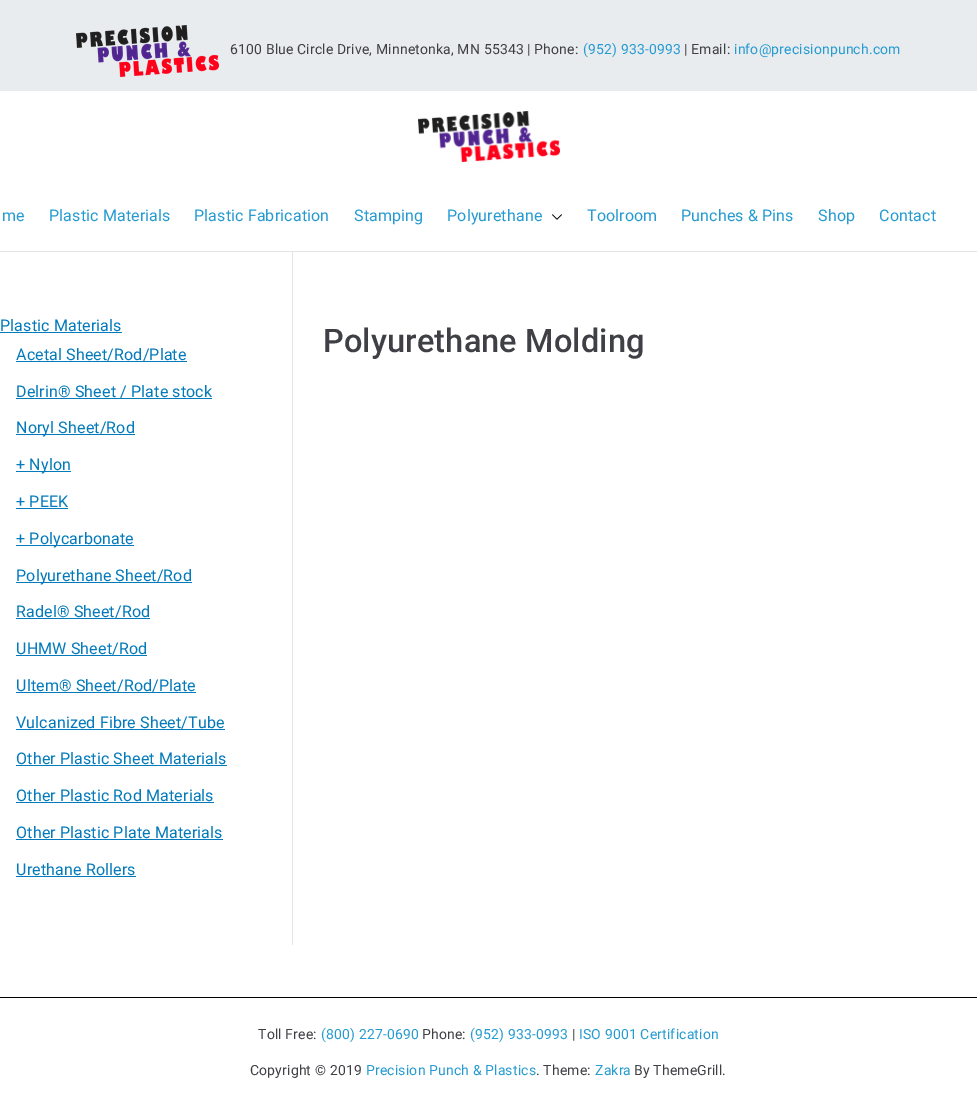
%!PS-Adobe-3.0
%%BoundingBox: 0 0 977 1107
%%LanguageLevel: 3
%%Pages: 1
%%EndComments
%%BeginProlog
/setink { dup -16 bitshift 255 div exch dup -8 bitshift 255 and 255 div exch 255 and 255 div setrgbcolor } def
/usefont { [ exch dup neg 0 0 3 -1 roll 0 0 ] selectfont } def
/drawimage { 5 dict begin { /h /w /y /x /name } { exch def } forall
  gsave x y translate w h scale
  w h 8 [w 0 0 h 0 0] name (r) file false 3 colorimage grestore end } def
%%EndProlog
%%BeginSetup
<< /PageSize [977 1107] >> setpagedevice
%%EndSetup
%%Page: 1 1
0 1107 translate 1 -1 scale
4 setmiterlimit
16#E4E4E7 setink
0 0 977 1107 rectfill
16#E9ECEF setink
0 0 977 91 rectfill
(img1.raw) 76 25 143 52 drawimage
/Roboto-Regular 14 usefont
16#3F3F46 setink
230 54 moveto 0.15 0 (6100 Blue Circle Drive, Minnetonka, MN 55343 | Phone:) ashow
16#269BD1 setink
583 54 moveto 0.15 0 (\(952\) 933-0993) ashow
16#3F3F46 setink
684 54 moveto 0.15 0 (| Email:) ashow
16#269BD1 setink
734 54 moveto 0.15 0 (info@precisionpunch.com) ashow
16#FFFFFF setink
0 91 977 160 rectfill
(img2.raw) 418 111 142 51 drawimage
/Roboto-Regular 16 usefont
16#269BD1 setink
2 221 moveto 0.15 0 (me) ashow
49 221 moveto 0.15 0 (Plastic Materials) ashow
194 221 moveto 0.15 0 (Plastic Fabrication) ashow
354 221 moveto 0.15 0 (Stamping) ashow
447 221 moveto 0.15 0 (Polyurethane) ashow
(img3.raw) 552 214 10 6 drawimage
587 221 moveto 0.15 0 (Toolroom) ashow
681 221 moveto 0.15 0 (Punches & Pins) ashow
818 221 moveto 0.15 0 (Shop) ashow
879 221 moveto 0.15 0 (Contact) ashow
16#FFFFFF setink
0 252 977 745 rectfill
16#E4E4E7 setink
292 252 1 693 rectfill
16#027ABB setink
0 331 moveto 0.15 0 (Plastic Materials) ashow
0 332 122 1 rectfill
16 360 moveto 0.15 0 (Acetal Sheet/Rod/Plate) ashow
16 361 171 1 rectfill
16 397 moveto 0.15 0 (Delrin® Sheet / Plate stock) ashow
16 398 196 1 rectfill
16 434 119 1 rectfill
16 433 moveto 0.15 0 (Noryl Sheet/Rod) ashow
16 471 55 1 rectfill
16 470 moveto 0.15 0 (+ Nylon) ashow
16 507 moveto 0.15 0 (+ PEEK) ashow
16 508 52 1 rectfill
16 545 118 1 rectfill
16 544 moveto 0.15 0 (+ Polycarbonate) ashow
16 582 176 1 rectfill
16 581 moveto 0.15 0 (Polyurethane Sheet/Rod) ashow
16 617 moveto 0.15 0 (Radel® Sheet/Rod) ashow
16 618 134 1 rectfill
16 654 moveto 0.15 0 (UHMW Sheet/Rod) ashow
16 655 131 1 rectfill
16 691 moveto 0.15 0 (Ultem® Sheet/Rod/Plate) ashow
16 692 180 1 rectfill
16 728 moveto 0.15 0 (Vulcanized Fibre Sheet/Tube) ashow
16 729 209 1 rectfill
16 764 moveto 0.15 0 (Other Plastic Sheet Materials) ashow
16 765 211 1 rectfill
16 801 moveto 0.15 0 (Other Plastic Rod Materials) ashow
16 802 198 1 rectfill
16 838 moveto 0.15 0 (Other Plastic Plate Materials) ashow
16 839 207 1 rectfill
16 875 moveto 0.15 0 (Urethane Rollers) ashow
16 876 120 1 rectfill
/Roboto-Medium 32.5 usefont
16#3F3F46 setink
323 352 moveto 0.15 0 (Polyurethane Molding) ashow
16#FFFFFF setink
0 998 977 109 rectfill
16#000000 setink
0 997 977 1 rectfill
/Roboto-Regular 14 usefont
16#3F3F46 setink
258 1039 moveto 0.15 0 (Toll Free:) ashow
16#269BD1 setink
321 1039 moveto 0.15 0 (\(800\) 227-0690) ashow
16#3F3F46 setink
422 1039 moveto 0.15 0 (Phone:) ashow
16#269BD1 setink
470 1039 moveto 0.15 0 (\(952\) 933-0993) ashow
16#3F3F46 setink
572 1039 moveto 0.15 0 (|) ashow
16#269BD1 setink
579 1039 moveto 0.15 0 (ISO 9001 Certification) ashow
16#3F3F46 setink
250 1075 moveto 0.15 0 (Copyright © 2019) ashow
16#269BD1 setink
366 1075 moveto 0.15 0 (Precision Punch & Plastics) ashow
16#3F3F46 setink
536 1075 moveto 0.15 0 (. Theme:) ashow
16#269BD1 setink
595 1075 moveto 0.15 0 (Zakra) ashow
16#3F3F46 setink
634 1075 moveto 0.15 0 (By ThemeGrill.) ashow
showpage
%%EOF
